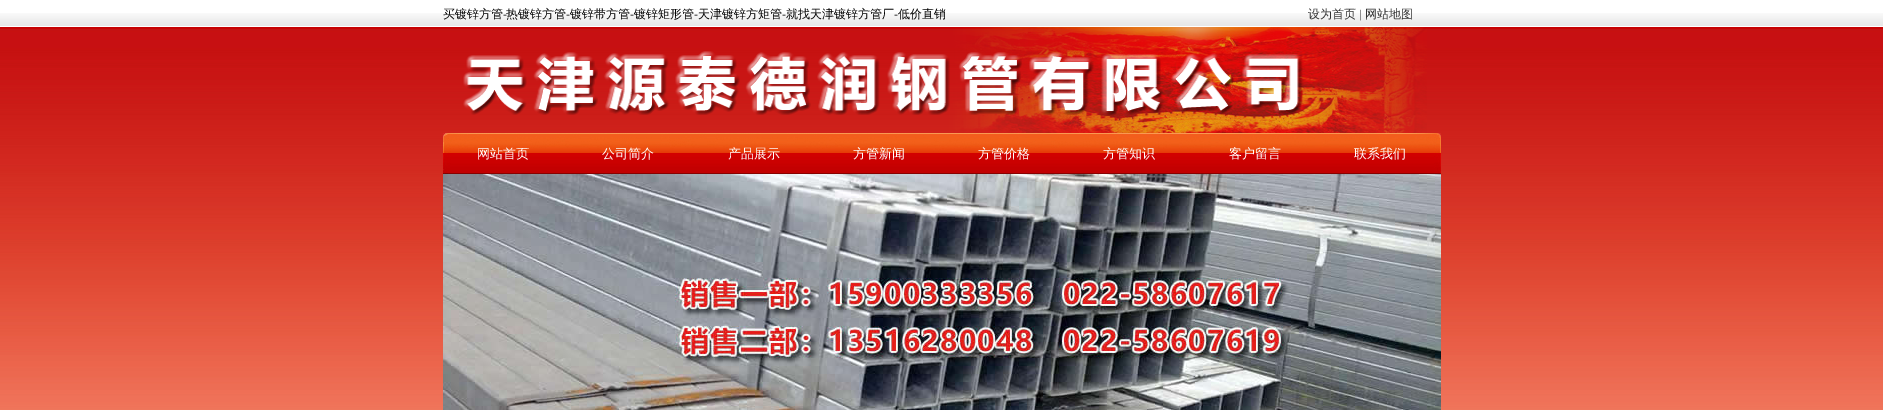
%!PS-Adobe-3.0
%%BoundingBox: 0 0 1883 410
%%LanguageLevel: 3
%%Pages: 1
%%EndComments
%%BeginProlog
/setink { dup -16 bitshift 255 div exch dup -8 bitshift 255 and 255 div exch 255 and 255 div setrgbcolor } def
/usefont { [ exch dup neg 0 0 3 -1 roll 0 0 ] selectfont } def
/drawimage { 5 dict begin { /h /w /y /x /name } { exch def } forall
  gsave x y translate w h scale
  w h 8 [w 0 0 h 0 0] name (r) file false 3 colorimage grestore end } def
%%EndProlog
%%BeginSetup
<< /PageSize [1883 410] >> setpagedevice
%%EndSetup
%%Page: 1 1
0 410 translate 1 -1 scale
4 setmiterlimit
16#FFFFFF setink
0 0 1883 410 rectfill
(img1.raw) 0 13 1883 397 drawimage
/WenQuanYiZenHei-Medium 12 usefont
16#000000 setink
443 18 moveto (买镀锌方管) show
/LiberationSerif-Regular 12 usefont
503 18 moveto (-) show
/WenQuanYiZenHei-Medium 12 usefont
506 18 moveto (热镀锌方管) show
/LiberationSerif-Regular 12 usefont
566 18 moveto (-) show
/WenQuanYiZenHei-Medium 12 usefont
570 18 moveto (镀锌带方管) show
/LiberationSerif-Regular 12 usefont
630 18 moveto (-) show
/WenQuanYiZenHei-Medium 12 usefont
634 18 moveto (镀锌矩形管) show
/LiberationSerif-Regular 12 usefont
694 18 moveto (-) show
/WenQuanYiZenHei-Medium 12 usefont
698 18 moveto (天津镀锌方矩管) show
/LiberationSerif-Regular 12 usefont
782 18 moveto (-) show
/WenQuanYiZenHei-Medium 12 usefont
786 18 moveto (就找天津镀锌方管厂) show
/LiberationSerif-Regular 12 usefont
894 18 moveto (-) show
/WenQuanYiZenHei-Medium 12 usefont
898 18 moveto (低价直销) show
16#333333 setink
1308 18 moveto (设为首页) show
/LiberationSerif-Regular 12 usefont
1359 18 moveto (|) show
/WenQuanYiZenHei-Medium 12 usefont
1365 18 moveto (网站地图) show
(img2.raw) 463 27 964 106 drawimage
(img3.raw) 443 133 998 41 drawimage
/WenQuanYiZenHei-Medium 13 usefont
16#FFFFFF setink
[
    [(网站首页) 477 158]
    [(公司简介) 602 158]
    [(产品展示) 728 158]
    [(方管新闻) 853 158]
    [(方管价格) 978 158]
    [(方管知识) 1103 158]
    [(客户留言) 1229 158]
    [(联系我们) 1354 158]
] { aload pop moveto show } forall
(img4.raw) 443 174 998 236 drawimage
showpage
%%EOF
